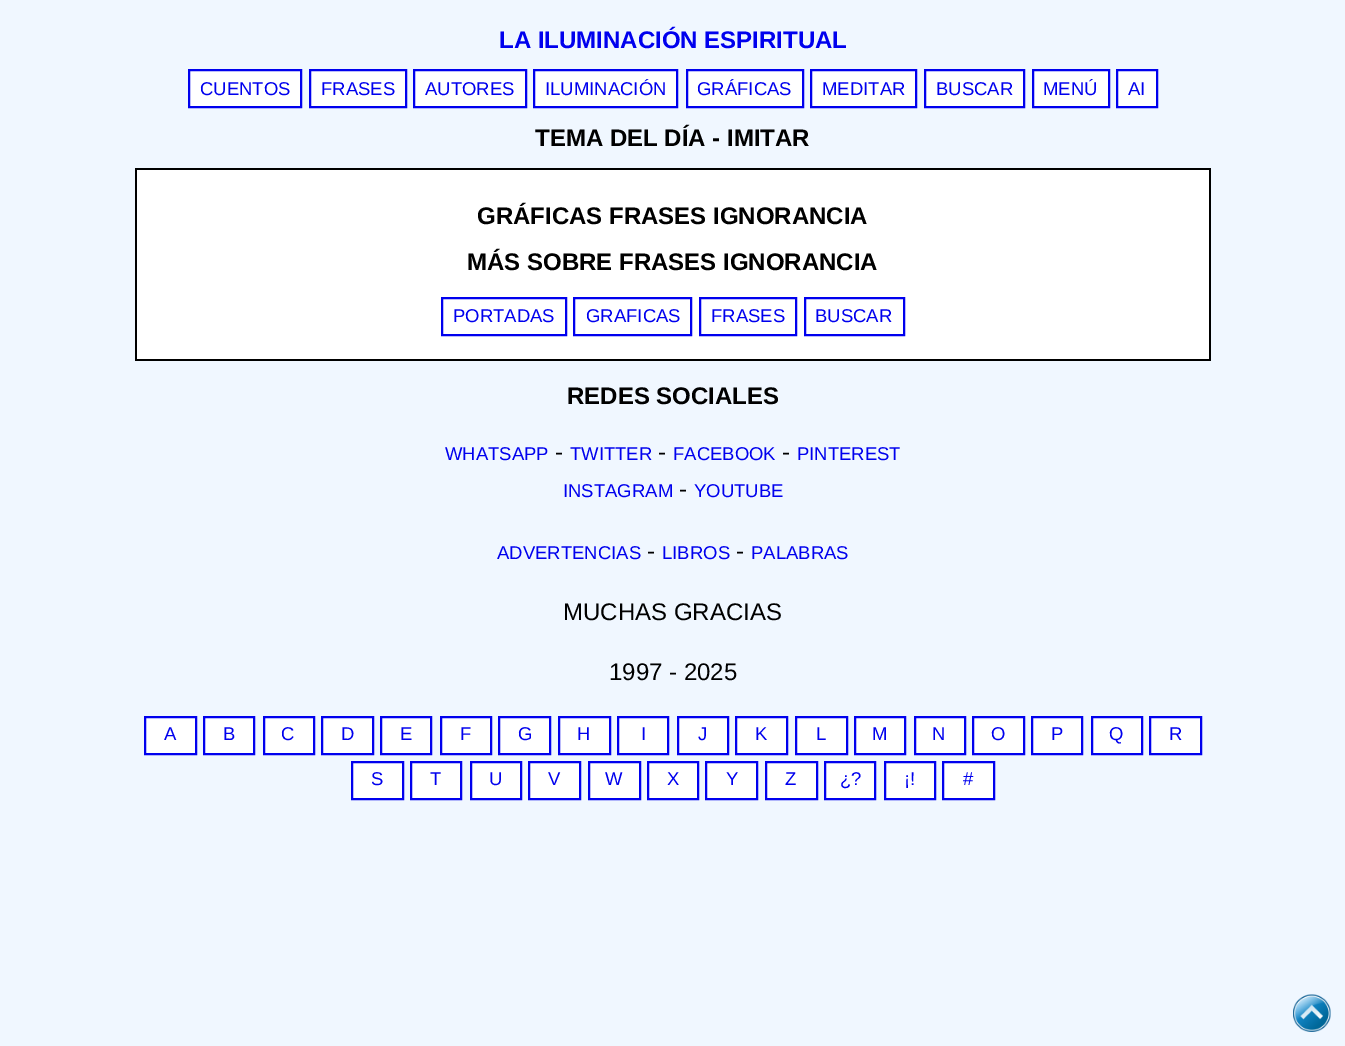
%!PS-Adobe-3.0
%%BoundingBox: 0 0 1345 1046
%%LanguageLevel: 3
%%Pages: 1
%%EndComments
%%BeginProlog
/setink { dup -16 bitshift 255 div exch dup -8 bitshift 255 and 255 div exch 255 and 255 div setrgbcolor } def
/usefont { [ exch dup neg 0 0 3 -1 roll 0 0 ] selectfont } def
/drawimage { 5 dict begin { /h /w /y /x /name } { exch def } forall
  gsave x y translate w h scale
  w h 8 [w 0 0 h 0 0] name (r) file false 3 colorimage grestore end } def
%%EndProlog
%%BeginSetup
<< /PageSize [1345 1046] >> setpagedevice
%%EndSetup
%%Page: 1 1
0 1046 translate 1 -1 scale
4 setmiterlimit
16#F0F7FF setink
0 0 1345 1046 rectfill
16#000000 setink
135 168 1076 2 rectfill
/LiberationSans-Bold 24 usefont
16#0000EE setink
499 48 moveto (LA ILUMINACIÓN ESPIRITUAL) show
16#FFFFFF setink
189 70 moveto 301 70 lineto 301 107 lineto 189 107 lineto closepath gsave fill grestore
16#0000EE setink
2 setlinewidth
stroke
/LiberationSans-Regular 18.5 usefont
200 95 moveto (CUENTOS) show
16#FFFFFF setink
310 70 moveto 406 70 lineto 406 107 lineto 310 107 lineto closepath gsave fill grestore
16#0000EE setink
stroke
321 95 moveto (FRASES) show
16#FFFFFF setink
414 70 moveto 526 70 lineto 526 107 lineto 414 107 lineto closepath gsave fill grestore
16#0000EE setink
stroke
425 95 moveto (AUTORES) show
16#FFFFFF setink
534 70 moveto 677 70 lineto 677 107 lineto 534 107 lineto closepath gsave fill grestore
16#0000EE setink
stroke
545 95 moveto (ILUMINACIÓN) show
16#FFFFFF setink
687 70 moveto 803 70 lineto 803 107 lineto 687 107 lineto closepath gsave fill grestore
16#0000EE setink
stroke
697 95 moveto (GRÁFICAS) show
16#FFFFFF setink
811 70 moveto 916 70 lineto 916 107 lineto 811 107 lineto closepath gsave fill grestore
16#0000EE setink
stroke
822 95 moveto (MEDITAR) show
16#FFFFFF setink
925 70 moveto 1024 70 lineto 1024 107 lineto 925 107 lineto closepath gsave fill grestore
16#0000EE setink
stroke
936 95 moveto (BUSCAR) show
16#FFFFFF setink
1033 70 moveto 1109 70 lineto 1109 107 lineto 1033 107 lineto closepath gsave fill grestore
16#0000EE setink
stroke
1043 95 moveto (MENÚ) show
16#FFFFFF setink
1117 70 moveto 1157 70 lineto 1157 107 lineto 1117 107 lineto closepath gsave fill grestore
16#0000EE setink
stroke
1128 95 moveto (AI) show
/LiberationSans-Bold 24 usefont
16#000000 setink
535 146 moveto (TEMA DEL DÍA - IMITAR) show
[
    [137 170 1072 189 16#FFFFFF]
    [1209 170 2 190 16#000000]
    [135 359 1076 2 16#000000]
    [135 170 2 190 16#000000]
] { aload pop setink rectfill } forall
477 224 moveto (GRÁFICAS FRASES IGNORANCIA) show
467 270 moveto (MÁS SOBRE FRASES IGNORANCIA) show
16#0000EE setink
442 298 124 37 rectstroke
/LiberationSans-Regular 18.5 usefont
453 322 moveto (PORTADAS) show
574 298 117 37 rectstroke
586 322 moveto (GRAFICAS) show
700 298 96 37 rectstroke
711 322 moveto (FRASES) show
805 298 99 37 rectstroke
815 322 moveto (BUSCAR) show
/LiberationSans-Bold 24 usefont
16#000000 setink
567 404 moveto (REDES SOCIALES) show
/LiberationSans-Regular 18.5 usefont
16#0000EE setink
445 460 moveto (WHATSAPP) show
/LiberationSans-Regular 24 usefont
16#000000 setink
555 460 moveto (-) show
/LiberationSans-Regular 18.5 usefont
16#0000EE setink
570 460 moveto (TWITTER) show
/LiberationSans-Regular 24 usefont
16#000000 setink
658 460 moveto (-) show
/LiberationSans-Regular 18.5 usefont
16#0000EE setink
673 460 moveto (FACEBOOK) show
/LiberationSans-Regular 24 usefont
16#000000 setink
782 460 moveto (-) show
/LiberationSans-Regular 18.5 usefont
16#0000EE setink
797 460 moveto (PINTEREST) show
563 497 moveto (INSTAGRAM) show
/LiberationSans-Regular 24 usefont
16#000000 setink
679 497 moveto (-) show
/LiberationSans-Regular 18.5 usefont
16#0000EE setink
694 497 moveto (YOUTUBE) show
497 559 moveto (ADVERTENCIAS) show
/LiberationSans-Regular 24 usefont
16#000000 setink
647 559 moveto (-) show
/LiberationSans-Regular 18.5 usefont
16#0000EE setink
662 559 moveto (LIBROS) show
/LiberationSans-Regular 24 usefont
16#000000 setink
736 559 moveto (-) show
/LiberationSans-Regular 18.5 usefont
16#0000EE setink
751 559 moveto (PALABRAS) show
/LiberationSans-Regular 24 usefont
16#000000 setink
563 620 moveto (MUCHAS GRACIAS) show
609 680 moveto (1997 - 2025) show
16#FFFFFF setink
145 717 moveto 196 717 lineto 196 754 lineto 145 754 lineto closepath gsave fill grestore
16#0000EE setink
stroke
/LiberationSans-Regular 18.5 usefont
164 740 moveto (A) show
16#FFFFFF setink
204 717 moveto 254 717 lineto 254 754 lineto 204 754 lineto closepath gsave fill grestore
16#0000EE setink
stroke
223 740 moveto (B) show
16#FFFFFF setink
264 717 moveto 314 717 lineto 314 754 lineto 264 754 lineto closepath gsave fill grestore
16#0000EE setink
stroke
281 740 moveto (C) show
16#FFFFFF setink
322 717 moveto 373 717 lineto 373 754 lineto 322 754 lineto closepath gsave fill grestore
16#0000EE setink
stroke
341 740 moveto (D) show
16#FFFFFF setink
381 717 moveto 431 717 lineto 431 754 lineto 381 754 lineto closepath gsave fill grestore
16#0000EE setink
stroke
400 740 moveto (E) show
16#FFFFFF setink
441 717 moveto 491 717 lineto 491 754 lineto 441 754 lineto closepath gsave fill grestore
16#0000EE setink
stroke
460 740 moveto (F) show
16#FFFFFF setink
499 717 moveto 550 717 lineto 550 754 lineto 499 754 lineto closepath gsave fill grestore
16#0000EE setink
stroke
518 740 moveto (G) show
16#FFFFFF setink
559 717 moveto 610 717 lineto 610 754 lineto 559 754 lineto closepath gsave fill grestore
16#0000EE setink
stroke
577 740 moveto (H) show
16#FFFFFF setink
618 717 moveto 668 717 lineto 668 754 lineto 618 754 lineto closepath gsave fill grestore
16#0000EE setink
stroke
641 740 moveto (I) show
16#FFFFFF setink
678 717 moveto 728 717 lineto 728 754 lineto 678 754 lineto closepath gsave fill grestore
16#0000EE setink
stroke
698 740 moveto (J) show
16#FFFFFF setink
736 717 moveto 787 717 lineto 787 754 lineto 736 754 lineto closepath gsave fill grestore
16#0000EE setink
stroke
755 740 moveto (K) show
16#FFFFFF setink
796 717 moveto 847 717 lineto 847 754 lineto 796 754 lineto closepath gsave fill grestore
16#0000EE setink
stroke
816 740 moveto (L) show
16#FFFFFF setink
855 717 moveto 905 717 lineto 905 754 lineto 855 754 lineto closepath gsave fill grestore
16#0000EE setink
stroke
872 740 moveto (M) show
16#FFFFFF setink
915 717 moveto 965 717 lineto 965 754 lineto 915 754 lineto closepath gsave fill grestore
16#0000EE setink
stroke
932 740 moveto (N) show
16#FFFFFF setink
973 717 moveto 1024 717 lineto 1024 754 lineto 973 754 lineto closepath gsave fill grestore
16#0000EE setink
stroke
991 740 moveto (O) show
16#FFFFFF setink
1032 717 moveto 1082 717 lineto 1082 754 lineto 1032 754 lineto closepath gsave fill grestore
16#0000EE setink
stroke
1051 740 moveto (P) show
16#FFFFFF setink
1092 717 moveto 1142 717 lineto 1142 754 lineto 1092 754 lineto closepath gsave fill grestore
16#0000EE setink
stroke
1109 740 moveto (Q) show
16#FFFFFF setink
1150 717 moveto 1201 717 lineto 1201 754 lineto 1150 754 lineto closepath gsave fill grestore
16#0000EE setink
stroke
1169 740 moveto (R) show
16#FFFFFF setink
352 762 moveto 403 762 lineto 403 799 lineto 352 799 lineto closepath gsave fill grestore
16#0000EE setink
stroke
371 785 moveto (S) show
16#FFFFFF setink
411 762 moveto 461 762 lineto 461 799 lineto 411 799 lineto closepath gsave fill grestore
16#0000EE setink
stroke
430 785 moveto (T) show
16#FFFFFF setink
471 762 moveto 521 762 lineto 521 799 lineto 471 799 lineto closepath gsave fill grestore
16#0000EE setink
stroke
489 785 moveto (U) show
16#FFFFFF setink
529 762 moveto 580 762 lineto 580 799 lineto 529 799 lineto closepath gsave fill grestore
16#0000EE setink
stroke
548 785 moveto (V) show
16#FFFFFF setink
589 762 moveto 640 762 lineto 640 799 lineto 589 799 lineto closepath gsave fill grestore
16#0000EE setink
stroke
605 785 moveto (W) show
16#FFFFFF setink
648 762 moveto 698 762 lineto 698 799 lineto 648 799 lineto closepath gsave fill grestore
16#0000EE setink
stroke
667 785 moveto (X) show
16#FFFFFF setink
706 762 moveto 757 762 lineto 757 799 lineto 706 799 lineto closepath gsave fill grestore
16#0000EE setink
stroke
726 785 moveto (Y) show
16#FFFFFF setink
766 762 moveto 817 762 lineto 817 799 lineto 766 799 lineto closepath gsave fill grestore
16#0000EE setink
stroke
785 785 moveto (Z) show
16#FFFFFF setink
825 762 moveto 875 762 lineto 875 799 lineto 825 799 lineto closepath gsave fill grestore
16#0000EE setink
stroke
840 785 moveto (¿?) show
16#FFFFFF setink
885 762 moveto 935 762 lineto 935 799 lineto 885 799 lineto closepath gsave fill grestore
16#0000EE setink
stroke
904 785 moveto (¡!) show
16#FFFFFF setink
943 762 moveto 994 762 lineto 994 799 lineto 943 799 lineto closepath gsave fill grestore
16#0000EE setink
stroke
963 785 moveto (#) show
(img1.raw) 1293 994 38 38 drawimage
showpage
%%EOF
